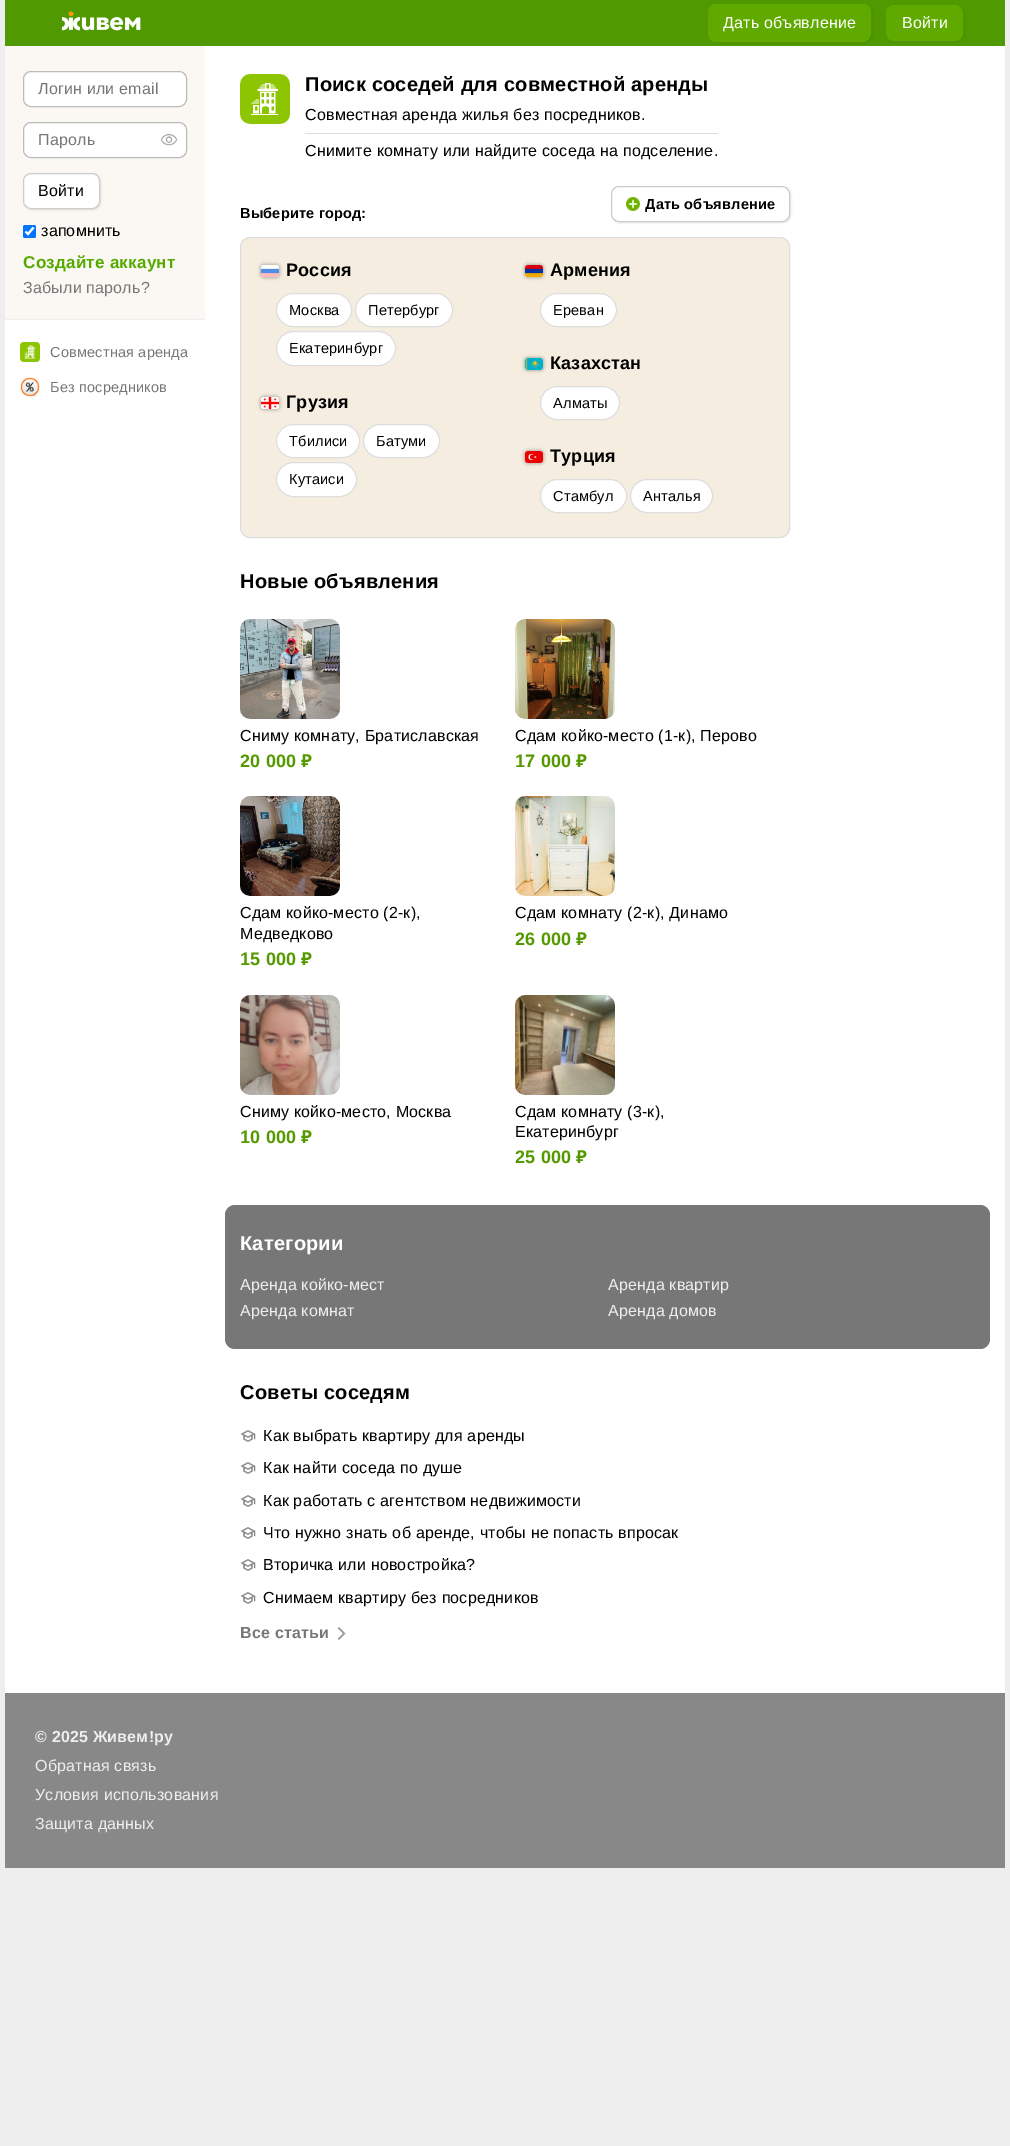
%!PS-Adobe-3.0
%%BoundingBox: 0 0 1010 2146
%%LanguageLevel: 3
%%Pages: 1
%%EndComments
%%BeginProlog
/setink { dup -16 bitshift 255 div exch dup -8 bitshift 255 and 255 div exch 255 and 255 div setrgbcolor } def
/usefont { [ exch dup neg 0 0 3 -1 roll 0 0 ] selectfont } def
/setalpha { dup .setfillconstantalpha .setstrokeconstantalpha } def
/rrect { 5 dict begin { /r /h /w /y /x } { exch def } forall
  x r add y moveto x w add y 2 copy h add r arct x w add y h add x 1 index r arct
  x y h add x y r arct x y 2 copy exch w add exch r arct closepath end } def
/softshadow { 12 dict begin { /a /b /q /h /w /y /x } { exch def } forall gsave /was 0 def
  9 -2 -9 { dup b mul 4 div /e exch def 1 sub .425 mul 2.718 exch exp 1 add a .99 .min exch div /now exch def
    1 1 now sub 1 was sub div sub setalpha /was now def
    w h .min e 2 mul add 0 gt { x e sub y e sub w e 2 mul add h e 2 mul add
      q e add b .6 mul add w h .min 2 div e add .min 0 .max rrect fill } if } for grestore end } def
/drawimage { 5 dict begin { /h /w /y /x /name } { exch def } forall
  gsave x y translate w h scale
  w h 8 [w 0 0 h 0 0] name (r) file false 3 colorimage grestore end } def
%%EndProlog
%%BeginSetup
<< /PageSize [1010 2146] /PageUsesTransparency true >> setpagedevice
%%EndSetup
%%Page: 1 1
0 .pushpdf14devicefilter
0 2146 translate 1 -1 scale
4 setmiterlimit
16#EEEEEE setink
0 0 1010 2146 rectfill
16#509900 setink
5 0 1000 46 rectfill
(img1.raw) 62 11 79 20 drawimage
16#FFFFFF setink
5 46 1000 1647 rectfill
16#000000 setink
709 5 163 38 8 1 0.1 softshadow
16#60AA00 setink
708.5 4.5 162 37 7.5 rrect gsave fill grestore
stroke
/LiberationSans-Regular 16 usefont
16#FFFFFF setink
723 28 moveto 0.2 0 (Дать объявление) ashow
16#000000 setink
887 6 77 36 8 1 0.1 softshadow
16#60AA00 setink
886.5 5.5 76 35 7.5 rrect gsave fill grestore
stroke
16#FFFFFF setink
902 28 moveto 0.2 0 (Войти) ashow
16#FBF7F3 setink
5 46 200 273 rectfill
16#FFFFFF setink
23.5 71.5 163 35 7.5 rrect gsave fill grestore
16#BBBBBB setink
stroke
16#777777 setink
38 94 moveto 0.2 0 (Логин или email) ashow
16#FFFFFF setink
23.5 122.5 163 35 7.5 rrect gsave fill grestore
16#BBBBBB setink
stroke
16#777777 setink
38 145 moveto 0.2 0 (Пароль) ashow
(img2.raw) 160 134 18 12 drawimage
16#000000 setink
24 174 77 36 8 1 0.1 softshadow
16#FFFFFF setink
23.5 173.5 76 35 7.5 rrect gsave fill grestore
16#CCCCCC setink
stroke
16#000000 setink
38 196 moveto 0.2 0 (Войти) ashow
16#0075FF setink
23 225 13 13 2 rrect fill
16#FFFFFF setink
2.1 setlinewidth
25.5 231.5 moveto 28 234 lineto 33.5 227.5 lineto stroke
16#000000 setink
41 236 moveto 0.2 0 (запомнить) ashow
/LiberationSans-Bold 17.1 usefont
16#55AA00 setink
23 268 moveto 0.2 0 (Создайте аккаунт) ashow
/LiberationSans-Regular 16 usefont
16#777777 setink
23 293 moveto 0.2 0 (Забыли пароль?) ashow
16#EEEEEE setink
5 319 200 1 rectfill
(img3.raw) 20 342 20 20 drawimage
/LiberationSans-Regular 14.5 usefont
16#777777 setink
50 357 moveto 0.2 0 (Совместная аренда) ashow
(img4.raw) 20 377 20 20 drawimage
50 392 moveto 0.2 0 (Без посредников) ashow
(img5.raw) 240 74 50 50 drawimage
/LiberationSans-Bold 20 usefont
16#000000 setink
305 91 moveto 0.2 0 (Поиск соседей для совместной аренды) ashow
/LiberationSans-Regular 16 usefont
305 120 moveto 0.2 0 (Совместная аренда жилья без посредников.) ashow
16#DDDDDD setink
305 133 413 1 rectfill
16#000000 setink
305 156 moveto 0.2 0 (Снимите комнату или найдите соседа на подселение.) ashow
612 187 179 36 8 1 0.1 softshadow
16#FFFFFF setink
611.5 186.5 178 35 7.5 rrect gsave fill grestore
16#CCCCCC setink
1 setlinewidth
stroke
(img6.raw) 626 197 14 14 drawimage
/LiberationSans-Bold 14.5 usefont
16#000000 setink
645 209 moveto 0.2 0 (Дать объявление) ashow
240 218 moveto 0.2 0 (Выберите город:) ashow
16#F5EEE0 setink
240.5 237.5 549 300 9.5 rrect gsave fill grestore
16#DDDDDD setink
stroke
16#000000 setink
260 264 20 14 4 1.5 0.25 softshadow
/LiberationSans-Bold 18 usefont
286 276 moveto 0.2 0 (Россия) ashow
(img7.raw) 261 265 18 12 drawimage
16#FFFFFF setink
276.5 293.5 75 33 16.5 rrect gsave fill grestore
16#DDDDDD setink
stroke
/LiberationSans-Regular 14.5 usefont
16#000000 setink
289 315 moveto 0.2 0 (Москва) ashow
16#FFFFFF setink
355.5 293.5 97 33 16.5 rrect gsave fill grestore
16#DDDDDD setink
stroke
16#000000 setink
368 315 moveto 0.2 0 (Петербург) ashow
16#FFFFFF setink
276.5 331.5 119 34 17 rrect gsave fill grestore
16#DDDDDD setink
stroke
16#000000 setink
289 353 moveto 0.2 0 (Екатеринбург) ashow
260 396 20 14 4 1.5 0.25 softshadow
/LiberationSans-Bold 18 usefont
286 408 moveto 0.2 0 (Грузия) ashow
(img8.raw) 261 397 18 12 drawimage
16#FFFFFF setink
276.5 424.5 83 33 16.5 rrect gsave fill grestore
16#DDDDDD setink
stroke
/LiberationSans-Regular 14.5 usefont
16#000000 setink
289 446 moveto 0.2 0 (Тбилиси) ashow
16#FFFFFF setink
363.5 424.5 76 33 16.5 rrect gsave fill grestore
16#DDDDDD setink
stroke
16#000000 setink
376 446 moveto 0.2 0 (Батуми) ashow
16#FFFFFF setink
276.5 462.5 80 34 17 rrect gsave fill grestore
16#DDDDDD setink
stroke
16#000000 setink
289 484 moveto 0.2 0 (Кутаиси) ashow
524 264 20 14 4 1.5 0.25 softshadow
/LiberationSans-Bold 18 usefont
550 276 moveto 0.2 0 (Армения) ashow
(img9.raw) 525 265 18 12 drawimage
16#FFFFFF setink
540.5 293.5 76 33 16.5 rrect gsave fill grestore
16#DDDDDD setink
stroke
/LiberationSans-Regular 14.5 usefont
16#000000 setink
553 315 moveto 0.2 0 (Ереван) ashow
524 357 20 14 4 1.5 0.25 softshadow
/LiberationSans-Bold 18 usefont
550 369 moveto 0.2 0 (Казахстан) ashow
(img10.raw) 525 358 18 12 drawimage
16#FFFFFF setink
540.5 386.5 79 33 16.5 rrect gsave fill grestore
16#DDDDDD setink
stroke
/LiberationSans-Regular 14.5 usefont
16#000000 setink
553 408 moveto 0.2 0 (Алматы) ashow
524 450 20 14 4 1.5 0.25 softshadow
/LiberationSans-Bold 18 usefont
550 462 moveto 0.2 0 (Турция) ashow
(img11.raw) 525 451 18 12 drawimage
16#FFFFFF setink
540.5 479.5 86 33 16.5 rrect gsave fill grestore
16#DDDDDD setink
stroke
/LiberationSans-Regular 14.5 usefont
16#000000 setink
553 501 moveto 0.2 0 (Стамбул) ashow
16#FFFFFF setink
630.5 479.5 82 33 16.5 rrect gsave fill grestore
16#DDDDDD setink
stroke
16#000000 setink
643 501 moveto 0.2 0 (Анталья) ashow
/LiberationSans-Bold 20 usefont
240 588 moveto 0.2 0 (Новые объявления) ashow
(img12.raw) 240 619 100 100 drawimage
/LiberationSans-Regular 16 usefont
240 741 moveto 0.2 0 (Сниму комнату, Братиславская) ashow
/LiberationSans-Bold 18 usefont
16#559900 setink
240 767 moveto 0.2 0 (20 000) ashow
/NotoSans-Bold 18 usefont
301 767 moveto 0.2 0 (₽) ashow
(img13.raw) 515 619 100 100 drawimage
/LiberationSans-Regular 16 usefont
16#000000 setink
515 741 moveto 0.2 0 (Сдам койко-место \(1-к\), Перово) ashow
/LiberationSans-Bold 18 usefont
16#559900 setink
515 767 moveto 0.2 0 (17 000) ashow
/NotoSans-Bold 18 usefont
576 767 moveto 0.2 0 (₽) ashow
(img14.raw) 240 796 100 100 drawimage
/LiberationSans-Regular 16 usefont
16#000000 setink
240 918 moveto 0.2 0 (Сдам койко-место \(2-к\),) ashow
240 939 moveto 0.2 0 (Медведково) ashow
/LiberationSans-Bold 18 usefont
16#559900 setink
240 965 moveto 0.2 0 (15 000) ashow
/NotoSans-Bold 18 usefont
301 965 moveto 0.2 0 (₽) ashow
(img15.raw) 515 796 100 100 drawimage
/LiberationSans-Regular 16 usefont
16#000000 setink
515 918 moveto 0.2 0 (Сдам комнату \(2-к\), Динамо) ashow
/LiberationSans-Bold 18 usefont
16#559900 setink
515 945 moveto 0.2 0 (26 000) ashow
/NotoSans-Bold 18 usefont
576 945 moveto 0.2 0 (₽) ashow
(img16.raw) 240 995 100 100 drawimage
/LiberationSans-Regular 16 usefont
16#000000 setink
240 1117 moveto 0.2 0 (Сниму койко-место, Москва) ashow
/LiberationSans-Bold 18 usefont
16#559900 setink
240 1143 moveto 0.2 0 (10 000) ashow
/NotoSans-Bold 18 usefont
301 1143 moveto 0.2 0 (₽) ashow
(img17.raw) 515 995 100 100 drawimage
/LiberationSans-Regular 16 usefont
16#000000 setink
515 1117 moveto 0.2 0 (Сдам комнату \(3-к\),) ashow
515 1137 moveto 0.2 0 (Екатеринбург) ashow
/LiberationSans-Bold 18 usefont
16#559900 setink
515 1163 moveto 0.2 0 (25 000) ashow
/NotoSans-Bold 18 usefont
576 1163 moveto 0.2 0 (₽) ashow
16#777777 setink
225 1205 765 144 10 rrect fill
/LiberationSans-Bold 20 usefont
16#FFFFFF setink
240 1250 moveto 0.2 0 (Категории) ashow
/LiberationSans-Regular 16 usefont
16#EEEEEE setink
240 1290 moveto 0.2 0 (Аренда койко-мест) ashow
240 1316 moveto 0.2 0 (Аренда комнат) ashow
608 1290 moveto 0.2 0 (Аренда квартир) ashow
608 1316 moveto 0.2 0 (Аренда домов) ashow
/LiberationSans-Bold 20 usefont
16#000000 setink
240 1399 moveto 0.2 0 (Советы соседям) ashow
(img18.raw) 240 1430 16 12 drawimage
/LiberationSans-Regular 16 usefont
263 1441 moveto 0.2 0 (Как выбрать квартиру для аренды) ashow
(img18.raw) 240 1462 16 12 drawimage
263 1473 moveto 0.2 0 (Как найти соседа по душе) ashow
(img18.raw) 240 1495 16 12 drawimage
263 1506 moveto 0.2 0 (Как работать с агентством недвижимости) ashow
(img18.raw) 240 1527 16 12 drawimage
263 1538 moveto 0.2 0 (Что нужно знать об аренде, чтобы не попасть впросак) ashow
(img18.raw) 240 1559 16 12 drawimage
263 1570 moveto 0.2 0 (Вторичка или новостройка?) ashow
(img18.raw) 240 1592 16 12 drawimage
263 1603 moveto 0.2 0 (Снимаем квартиру без посредников) ashow
/LiberationSans-Bold 16 usefont
16#777777 setink
240 1638 moveto 0.2 0 (Все статьи) ashow
(img19.raw) 337 1627 9 13 drawimage
16#888888 setink
5 1693 1000 175 rectfill
16#EEEEEE setink
35 1742 moveto 0.2 0 (© 2025 Живем!ру) ashow
/LiberationSans-Regular 16 usefont
35 1771 moveto 0.2 0 (Обратная связь) ashow
35 1800 moveto 0.2 0 (Условия использования) ashow
35 1829 moveto 0.2 0 (Защита данных) ashow
.poppdf14devicefilter showpage
%%EOF
